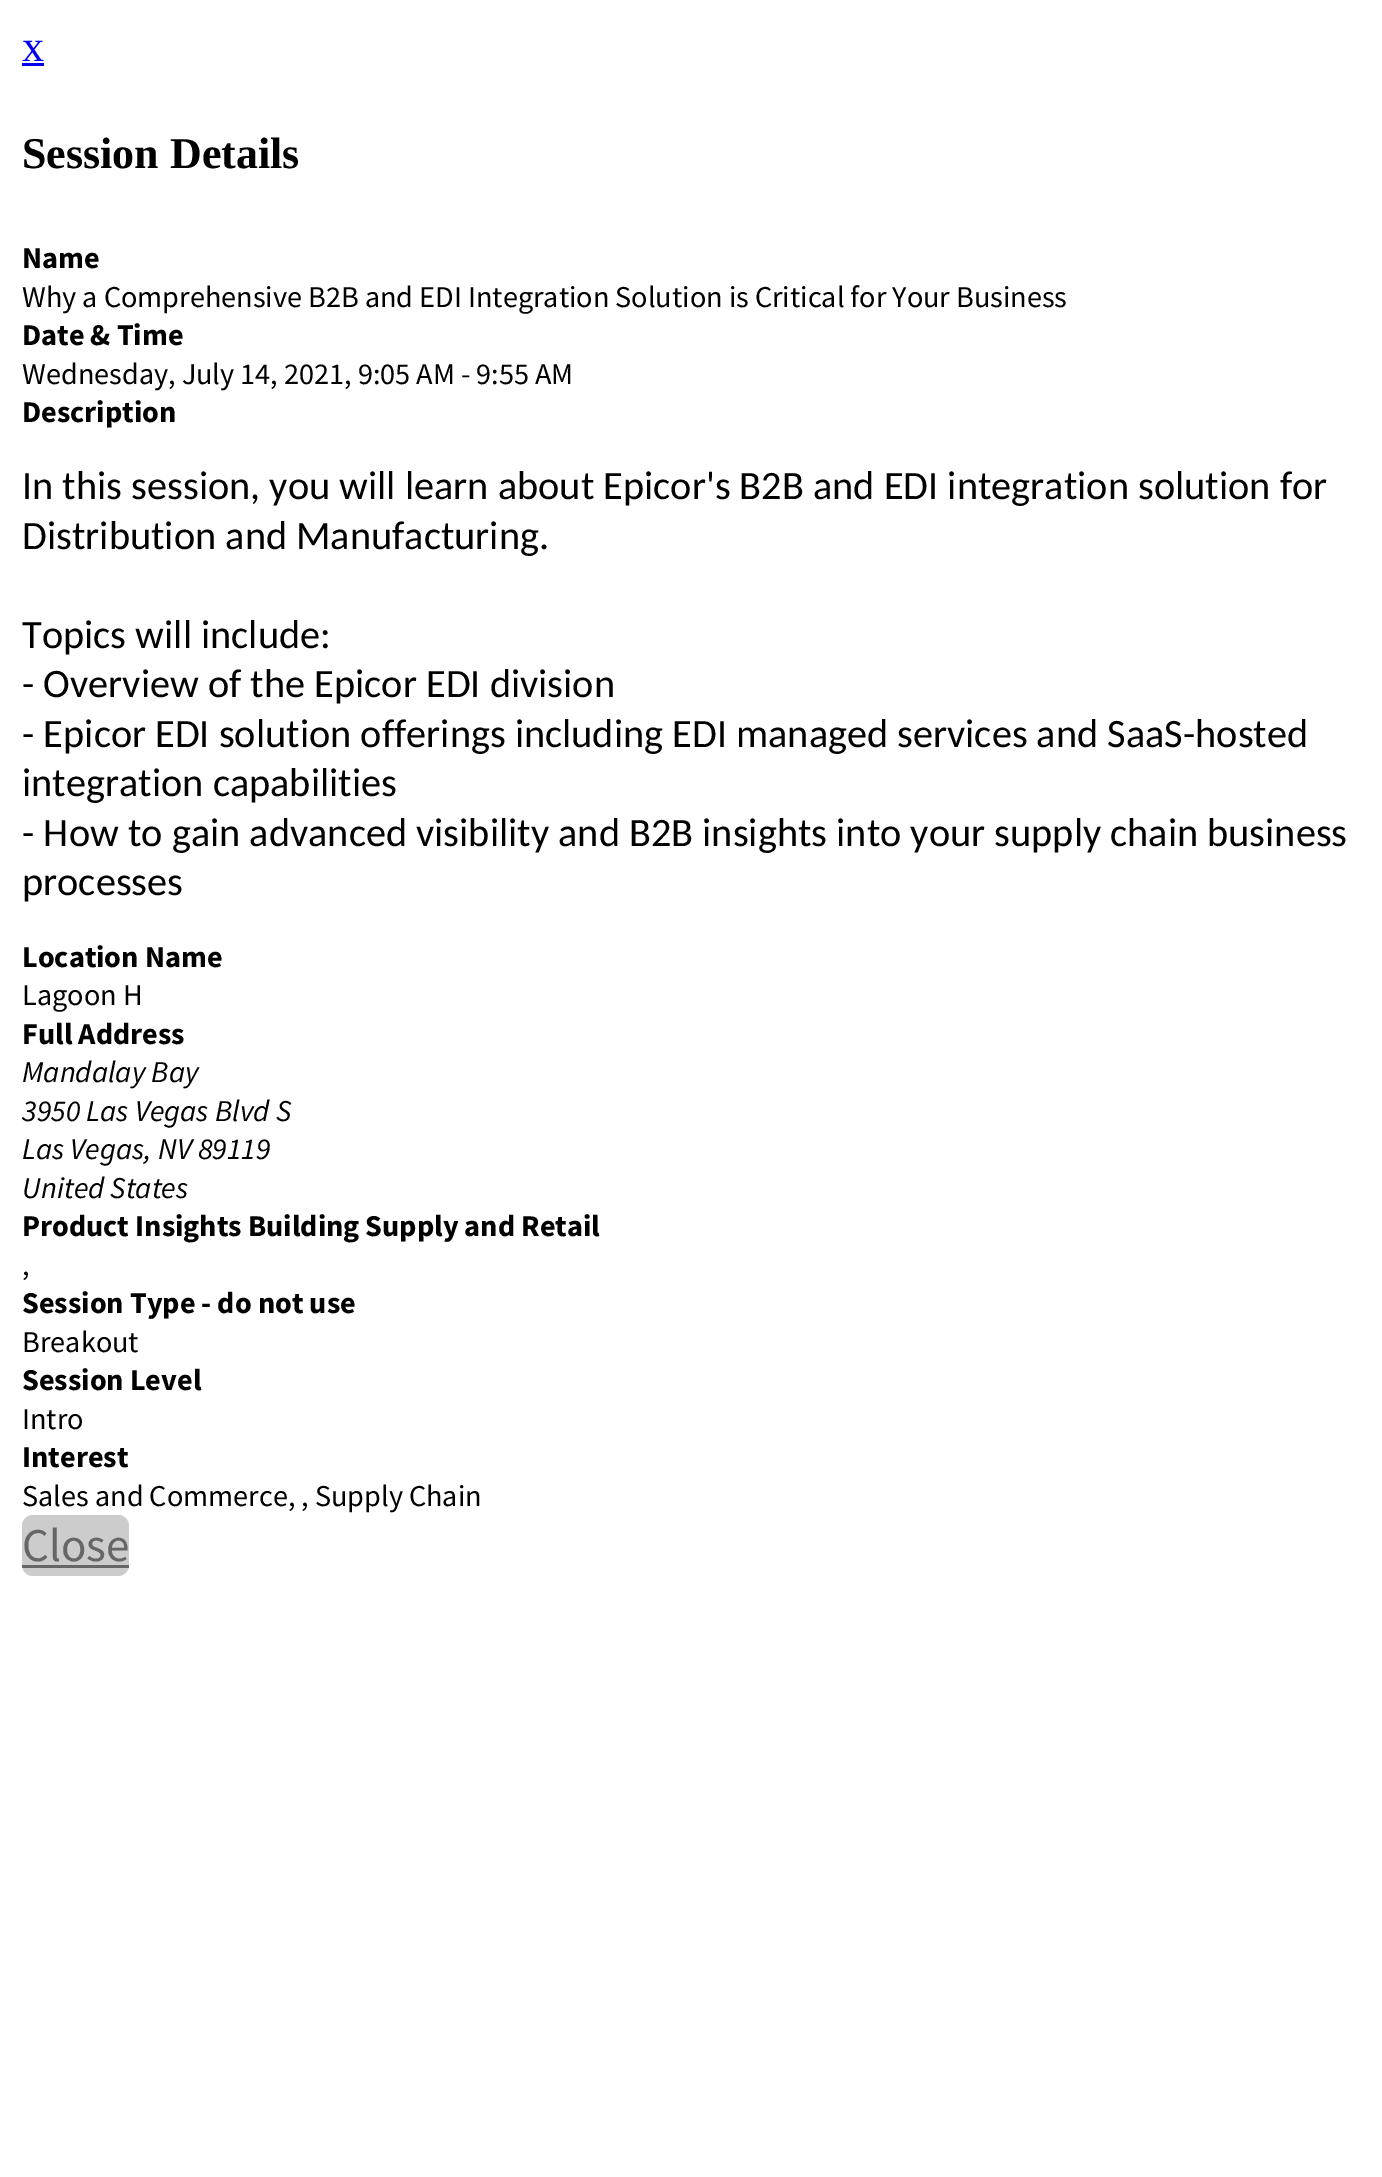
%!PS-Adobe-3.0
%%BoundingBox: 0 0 1382 2177
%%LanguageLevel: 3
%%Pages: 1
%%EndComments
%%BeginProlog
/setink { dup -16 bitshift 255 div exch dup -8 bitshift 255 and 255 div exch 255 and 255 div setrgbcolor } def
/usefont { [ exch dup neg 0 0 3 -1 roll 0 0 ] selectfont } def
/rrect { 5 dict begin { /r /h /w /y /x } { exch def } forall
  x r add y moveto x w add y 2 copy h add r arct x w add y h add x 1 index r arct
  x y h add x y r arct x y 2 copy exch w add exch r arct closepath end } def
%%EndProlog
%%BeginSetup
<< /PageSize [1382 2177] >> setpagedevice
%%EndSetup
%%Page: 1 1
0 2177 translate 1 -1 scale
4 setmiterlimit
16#FFFFFF setink
0 0 1382 2177 rectfill
/LiberationSerif-Regular 44 usefont
16#0000EE setink
22 61 moveto (x) show
22 63 22 3 rectfill
/LiberationSerif-Bold 44 usefont
16#000000 setink
22 168 moveto (Session Details) show
/SourceSansPro-Bold 30.25 usefont
22 268 moveto (Name) show
/SourceSansPro-Regular 30.25 usefont
22 307 moveto (Why a Comprehensive B2B and EDI Integration Solution is Critical for Your Business) show
/SourceSansPro-Bold 30.25 usefont
22 345 moveto (Date & Time) show
/SourceSansPro-Regular 30.25 usefont
22 384 moveto (Wednesday, July 14, 2021, 9:05 AM - 9:55 AM) show
/SourceSansPro-Bold 30.25 usefont
22 422 moveto (Description) show
/Carlito-Regular 40.3 usefont
[
    [(In this session, you will learn about Epicor's B2B and EDI integration solution for) 22 499]
    [(Distribution and Manufacturing.) 22 549]
    [(Topics will include:) 22 648]
    [(- Overview of the Epicor EDI division) 22 697]
    [(- Epicor EDI solution offerings including EDI managed services and SaaS-hosted) 22 747]
    [(integration capabilities) 22 796]
    [(- How to gain advanced visibility and B2B insights into your supply chain business) 22 846]
    [(processes) 22 895]
] { aload pop moveto show } forall
/SourceSansPro-Bold 30.25 usefont
22 967 moveto (Location Name) show
/SourceSansPro-Regular 30.25 usefont
22 1005 moveto (Lagoon H) show
/SourceSansPro-Bold 30.25 usefont
22 1044 moveto (Full Address) show
/SourceSansPro-Italic 30.25 usefont
[
    [(Mandalay Bay) 22 1082]
    [(3950 Las Vegas Blvd S) 22 1121]
    [(Las Vegas, NV 89119) 22 1159]
    [(United States) 22 1198]
] { aload pop moveto show } forall
/SourceSansPro-Bold 30.25 usefont
22 1236 moveto (Product Insights Building Supply and Retail) show
/SourceSansPro-Regular 30.25 usefont
22 1275 moveto (,) show
/SourceSansPro-Bold 30.25 usefont
22 1313 moveto (Session Type - do not use) show
/SourceSansPro-Regular 30.25 usefont
22 1352 moveto (Breakout) show
/SourceSansPro-Bold 30.25 usefont
22 1390 moveto (Session Level) show
/SourceSansPro-Regular 30.25 usefont
22 1429 moveto (Intro) show
/SourceSansPro-Bold 30.25 usefont
22 1467 moveto (Interest) show
/SourceSansPro-Regular 30.25 usefont
22 1506 moveto (Sales and Commerce, , Supply Chain) show
16#CCCCCC setink
22 1515 107 61 11 rrect fill
/SourceSansPro-Regular 47 usefont
16#666666 setink
22 1561 moveto (Close) show
22 1565 107 3 rectfill
showpage
%%EOF
